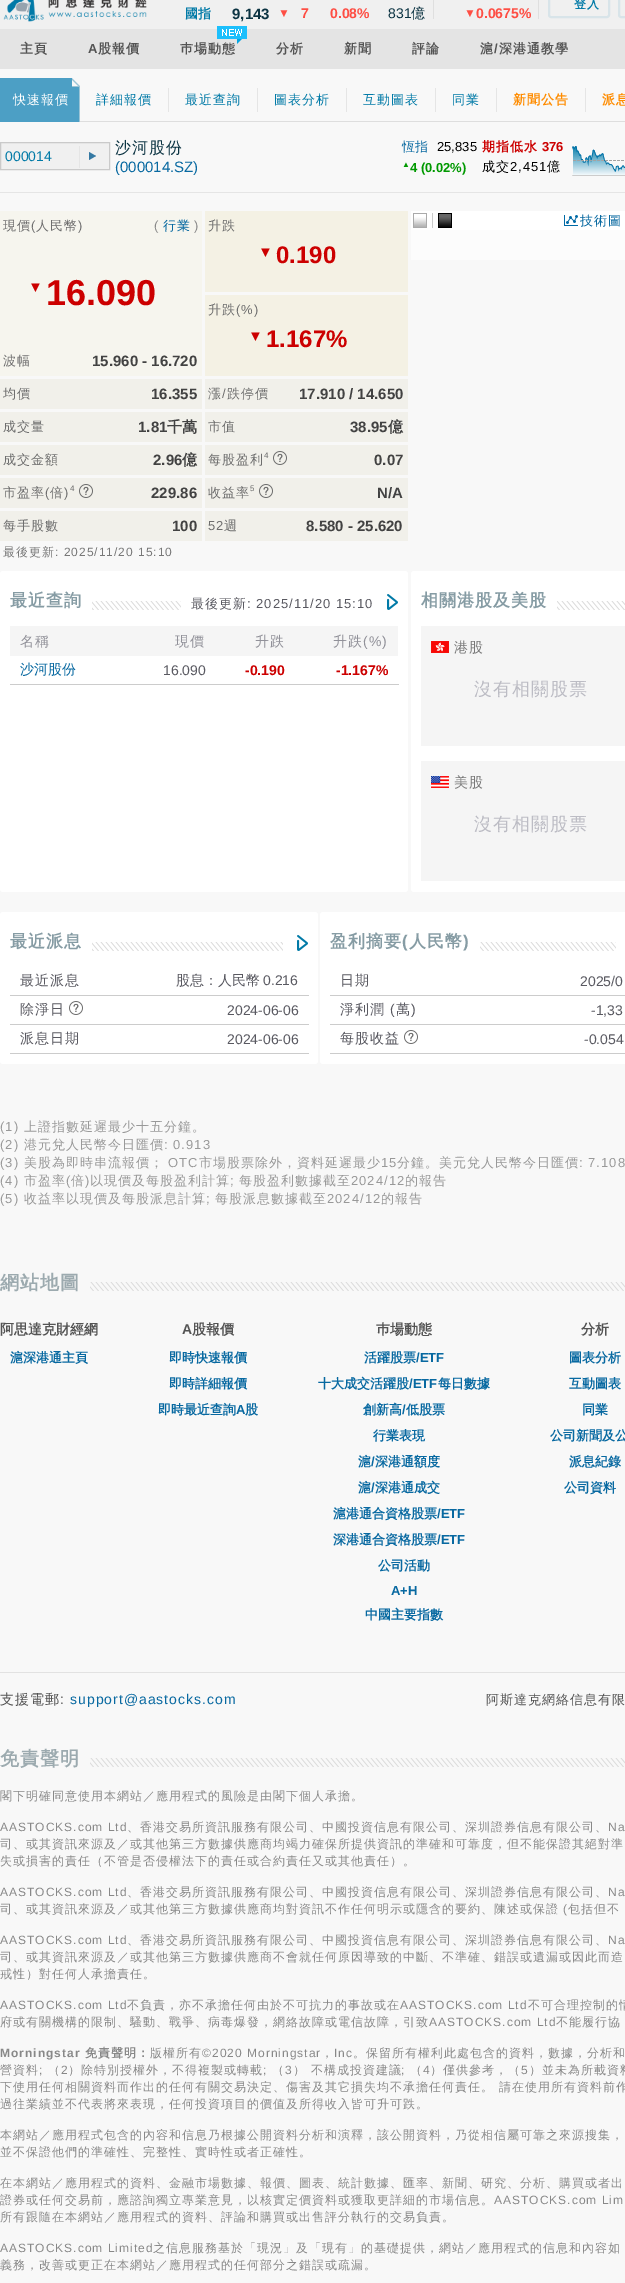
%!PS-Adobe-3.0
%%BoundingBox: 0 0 625 2283
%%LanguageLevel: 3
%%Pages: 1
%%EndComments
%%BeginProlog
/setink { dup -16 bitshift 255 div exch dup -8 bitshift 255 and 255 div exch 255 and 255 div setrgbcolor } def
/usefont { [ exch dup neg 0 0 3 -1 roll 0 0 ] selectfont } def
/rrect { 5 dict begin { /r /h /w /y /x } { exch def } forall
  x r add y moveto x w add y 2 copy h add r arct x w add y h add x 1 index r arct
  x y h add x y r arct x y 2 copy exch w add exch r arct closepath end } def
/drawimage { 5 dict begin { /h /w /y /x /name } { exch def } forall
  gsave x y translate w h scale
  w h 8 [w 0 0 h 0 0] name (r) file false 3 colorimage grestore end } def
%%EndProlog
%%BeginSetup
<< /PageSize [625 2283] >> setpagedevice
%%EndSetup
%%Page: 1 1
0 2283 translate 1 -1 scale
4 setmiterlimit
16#F8F8F8 setink
0 0 625 2283 rectfill
16#F0F0F0 setink
0 0 625 29 rectfill
(img1.raw) 3 0 144 22 drawimage
16#DFDFDF setink
433 0 1 19 rectfill
538 0 1 19 rectfill
16#D8E4E9 setink
2 setlinewidth
549 -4 60 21 2 rrect stroke
/WenQuanYiZenHei-Bold 12 usefont
16#017AA7 setink
574 8 moveto 1 0 (登入) ashow
16#D8E4E9 setink
619 -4 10 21 2 rrect stroke
/WenQuanYiZenHei-Bold 13 usefont
16#017AA7 setink
185 18 moveto (國指) show
/LiberationSans-Bold 15 usefont
16#0B3342 setink
232 19 moveto (9,143) show
/LiberationSans-Bold 12 usefont
16#FE4E44 setink
278 17 moveto (▼) show
/LiberationSans-Bold 14 usefont
301 18 moveto (7) show
330 18 moveto (0.08%) show
/LiberationSans-Regular 14 usefont
16#0B3342 setink
388 18 moveto (831) show
/WenQuanYiZenHei-Medium 14 usefont
411 18 moveto (億) show
/LiberationSans-Bold 12 usefont
16#FE4E44 setink
464 17 moveto (▼) show
/LiberationSans-Bold 14 usefont
476 18 moveto (0.0675%) show
16#E4E4E4 setink
0 29 625 40 rectfill
/WenQuanYiZenHei-Bold 13 usefont
16#545454 setink
20 53 moveto 1 0 (主頁) ashow
/LiberationSans-Bold 13 usefont
88 53 moveto 1 0 (A) ashow
/WenQuanYiZenHei-Bold 13 usefont
98 53 moveto 1 0 (股報價) ashow
180 53 moveto 1 0 (巿場動態) ashow
(img2.raw) 217 26 30 18 drawimage
276 53 moveto 1 0 (分析) ashow
344 53 moveto 1 0 (新聞) ashow
412 53 moveto 1 0 (評論) ashow
480 53 moveto 1 0 (滬 深港通教學) ashow
/LiberationSans-Bold 13 usefont
494 53 moveto 1 0 (/) ashow
16#DEDEDE setink
80 121 545 1 rectfill
16#4C9FC5 setink
0 78 72 44 rectfill
(img3.raw) 72 78 8 44 drawimage
/WenQuanYiZenHei-Medium 13 usefont
16#FFFFFF setink
13 104 moveto 1 0 (快速報價) ashow
16#017AA7 setink
96 104 moveto 1 0 (詳細報價) ashow
16#E5E5E5 setink
168 88 1 24 rectfill
16#017AA7 setink
185 104 moveto 1 0 (最近查詢) ashow
16#E5E5E5 setink
257 88 1 24 rectfill
16#017AA7 setink
274 104 moveto 1 0 (圖表分析) ashow
16#E5E5E5 setink
346 88 1 24 rectfill
16#017AA7 setink
363 104 moveto 1 0 (互動圖表) ashow
16#E5E5E5 setink
435 88 1 24 rectfill
16#017AA7 setink
452 104 moveto 1 0 (同業) ashow
16#E5E5E5 setink
496 88 1 24 rectfill
/WenQuanYiZenHei-Bold 13 usefont
16#FF8C00 setink
513 104 moveto 1 0 (新聞公告) ashow
16#E5E5E5 setink
585 88 1 24 rectfill
16#FF8C00 setink
602 104 moveto 1 0 (派息) ashow
16#E5E5E5 setink
0 192 625 1 rectfill
16#F0F0F0 setink
0.5 142.5 moveto 109.5 142.5 lineto 109.5 169.5 lineto 0.5 169.5 lineto closepath gsave fill grestore
16#CACACA setink
1 setlinewidth
stroke
/LiberationSans-Regular 14 usefont
16#017AA7 setink
5 161 moveto (000014) show
16#E5E5E5 setink
79 146 1 22 rectfill
16#3579A3 setink
89 160 moveto 89 152 lineto 96 156 lineto closepath fill
/WenQuanYiZenHei-Medium 16 usefont
16#0B3342 setink
115 153 moveto 1 0 (沙河股份) ashow
/LiberationSans-Regular 15 usefont
16#0869A1 setink
115 172 moveto (\(000014.SZ\)) show
/WenQuanYiZenHei-Medium 13 usefont
402 151 moveto (恆指) show
/LiberationSans-Regular 13 usefont
16#000000 setink
437 151 moveto (25,835) show
/WenQuanYiZenHei-Bold 13 usefont
16#CC0000 setink
482 151 moveto 1 0 (期指低水) ashow
/LiberationSans-Bold 13 usefont
542 151 moveto (376) show
(img4.raw) 572 146 53 30 drawimage
/LiberationSans-Bold 8 usefont
16#009900 setink
402 167 moveto (▲) show
/LiberationSans-Bold 13 usefont
410 172 moveto (4 \(0.02%\)) show
/WenQuanYiZenHei-Medium 13 usefont
16#000000 setink
482 171 moveto 1 0 (成交) ashow
/LiberationSans-Regular 13 usefont
510 171 moveto 1 0 (2,451) ashow
/WenQuanYiZenHei-Medium 13 usefont
547 171 moveto 1 0 (億) ashow
16#F6F5EE setink
0 211 202 165 rectfill
16#6E6E6E setink
3 230 moveto 1 0 (現價) ashow
/LiberationSans-Regular 13 usefont
31 230 moveto 1 0 (\() ashow
/WenQuanYiZenHei-Medium 13 usefont
36 230 moveto 1 0 (人民幣) ashow
/LiberationSans-Regular 13 usefont
78 230 moveto 1 0 (\)) ashow
16#888888 setink
154 230 moveto 1 0 (\() ashow
/WenQuanYiZenHei-Medium 13 usefont
16#0869A1 setink
163 230 moveto 1 0 (行業) ashow
/LiberationSans-Regular 13 usefont
16#888888 setink
194 230 moveto 1 0 (\)) ashow
/LiberationSans-Bold 15 usefont
16#CC0000 setink
28 292 moveto (▼) show
/LiberationSans-Bold 36 usefont
46 305 moveto (16.090) show
/WenQuanYiZenHei-Medium 13 usefont
16#6E6E6E setink
3 365 moveto 1 0 (波幅) ashow
/LiberationSans-Bold 15 usefont
16#424242 setink
92 366 moveto (15.960 - 16.720) show
16#F4F1E4 setink
205 211 203 81 rectfill
/WenQuanYiZenHei-Medium 13 usefont
16#6E6E6E setink
208 230 moveto 1 0 (升跌) ashow
/LiberationSans-Bold 15 usefont
16#CC0000 setink
258 257 moveto (▼) show
/LiberationSans-Bold 24 usefont
276 263 moveto (0.190) show
16#FFFFFF setink
411 211 214 19 rectfill
(img5.raw) 413 213 14 15 drawimage
16#CBCBCB setink
432 213 1 15 rectfill
(img6.raw) 438 213 14 15 drawimage
(img7.raw) 564 215 14 11 drawimage
/WenQuanYiZenHei-Medium 13 usefont
16#0869A1 setink
580 225 moveto 1 0 (技術圖) ashow
16#FCFCFC setink
411 230 214 30 rectfill
16#F4F1E4 setink
205 295 203 81 rectfill
16#6E6E6E setink
208 314 moveto 1 0 (升跌) ashow
/LiberationSans-Regular 13 usefont
236 314 moveto 1 0 (\(%\)) ashow
/LiberationSans-Bold 15 usefont
16#CC0000 setink
248 341 moveto (▼) show
/LiberationSans-Bold 24 usefont
266 347 moveto (1.167%) show
16#F1F0EA setink
0 379 202 30 rectfill
/WenQuanYiZenHei-Medium 13 usefont
16#6E6E6E setink
3 398 moveto 1 0 (均價) ashow
/LiberationSans-Bold 15 usefont
16#424242 setink
151 399 moveto (16.355) show
16#F1F0EA setink
205 379 203 30 rectfill
/WenQuanYiZenHei-Medium 13 usefont
16#6E6E6E setink
208 398 moveto 1 0 (漲 跌停價) ashow
/LiberationSans-Regular 13 usefont
222 398 moveto 1 0 (/) ashow
/LiberationSans-Bold 15 usefont
16#424242 setink
299 399 moveto (17.910 / 14.650) show
16#F1F0EA setink
0 412 202 30 rectfill
/WenQuanYiZenHei-Medium 13 usefont
16#6E6E6E setink
3 431 moveto 1 0 (成交量) ashow
/LiberationSans-Bold 15 usefont
16#424242 setink
138 432 moveto (1.81) show
/WenQuanYiZenHei-Bold 15 usefont
167 432 moveto (千萬) show
16#F1F0EA setink
205 412 203 30 rectfill
/WenQuanYiZenHei-Medium 13 usefont
16#6E6E6E setink
208 431 moveto 1 0 (市值) ashow
/LiberationSans-Bold 15 usefont
16#424242 setink
350 432 moveto (38.95) show
/WenQuanYiZenHei-Bold 15 usefont
388 432 moveto (億) show
16#F1F0EA setink
0 445 202 30 rectfill
/WenQuanYiZenHei-Medium 13 usefont
16#6E6E6E setink
3 464 moveto 1 0 (成交金額) ashow
/LiberationSans-Bold 15 usefont
16#424242 setink
153 465 moveto (2.96) show
/WenQuanYiZenHei-Bold 15 usefont
182 465 moveto (億) show
16#F1F0EA setink
205 445 203 30 rectfill
/WenQuanYiZenHei-Medium 13 usefont
16#6E6E6E setink
208 464 moveto 1 0 (每股盈利) ashow
/LiberationSans-Regular 8 usefont
264 458 moveto 1 0 (4) ashow
(img8.raw) 273 451 14 14 drawimage
/LiberationSans-Bold 15 usefont
16#424242 setink
374 465 moveto (0.07) show
16#F1F0EA setink
0 478 202 30 rectfill
/WenQuanYiZenHei-Medium 13 usefont
16#6E6E6E setink
3 497 moveto 1 0 (市盈率) ashow
/LiberationSans-Regular 13 usefont
45 497 moveto 1 0 (\() ashow
/WenQuanYiZenHei-Medium 13 usefont
50 497 moveto 1 0 (倍) ashow
/LiberationSans-Regular 13 usefont
64 497 moveto 1 0 (\)) ashow
/LiberationSans-Regular 8 usefont
70 491 moveto 1 0 (4) ashow
(img8.raw) 79 484 14 14 drawimage
/LiberationSans-Bold 15 usefont
16#424242 setink
151 498 moveto (229.86) show
16#F1F0EA setink
205 478 203 30 rectfill
/WenQuanYiZenHei-Medium 13 usefont
16#6E6E6E setink
208 497 moveto 1 0 (收益率) ashow
/LiberationSans-Regular 8 usefont
250 491 moveto 1 0 (5) ashow
(img8.raw) 259 484 14 14 drawimage
/LiberationSans-Bold 15 usefont
16#424242 setink
377 498 moveto (N/A) show
16#F1F0EA setink
0 511 202 30 rectfill
/WenQuanYiZenHei-Medium 13 usefont
16#6E6E6E setink
3 530 moveto 1 0 (每手股數) ashow
/LiberationSans-Bold 15 usefont
16#424242 setink
172 531 moveto (100) show
16#F1F0EA setink
205 511 203 30 rectfill
/LiberationSans-Regular 13 usefont
16#6E6E6E setink
208 530 moveto 1 0 (52) ashow
/WenQuanYiZenHei-Medium 13 usefont
224 530 moveto 1 0 (週) ashow
/LiberationSans-Bold 15 usefont
16#424242 setink
306 531 moveto (8.580 - 25.620) show
/WenQuanYiZenHei-Medium 12 usefont
16#787878 setink
3 556 moveto 1 0 (最後更新) ashow
/LiberationSans-Regular 12 usefont
55 556 moveto 1 0 (: 2025/11/20 15:10) ashow
16#FFFFFF setink
0 571 408 321 3 rrect fill
/WenQuanYiZenHei-Bold 17 usefont
16#869CA4 setink
10 606 moveto 1 0 (最近查詢) ashow
(img9.raw) 92 601 89 9 drawimage
/WenQuanYiZenHei-Medium 13 usefont
16#595961 setink
191 608 moveto 1 0 (最後更新) ashow
/LiberationSans-Regular 13 usefont
247 608 moveto 1 0 (: 2025/11/20 15:10) ashow
(img10.raw) 387 594 11 16 drawimage
16#F5F5F5 setink
10 626 388 30 rectfill
/WenQuanYiZenHei-Medium 14 usefont
16#919199 setink
20 646 moveto 1 0 (名稱) ashow
175 646 moveto 1 0 (現價) ashow
255 646 moveto 1 0 (升跌) ashow
333 646 moveto 1 0 (升跌) ashow
/LiberationSans-Regular 14 usefont
363 646 moveto 1 0 (\(%\)) ashow
/WenQuanYiZenHei-Medium 14 usefont
16#0869A1 setink
20 674 moveto (沙河股份) show
/LiberationSans-Regular 14 usefont
16#595961 setink
163 675 moveto (16.090) show
/LiberationSans-Bold 14 usefont
16#CC0000 setink
245 675 moveto (-0.190) show
16#CCCCCC setink
10 684 389 1 rectfill
16#CC0000 setink
336 675 moveto (-1.167%) show
16#FFFFFF setink
411 571 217 321 3 rrect fill
/WenQuanYiZenHei-Bold 17 usefont
16#869CA4 setink
421 606 moveto 1 0 (相關港股及美股) ashow
(img11.raw) 557 601 68 9 drawimage
16#F5F5F5 setink
421 626 204 120 rectfill
(img12.raw) 431 641 18 12 drawimage
/WenQuanYiZenHei-Medium 14 usefont
16#787878 setink
454 652 moveto 1 0 (港股) ashow
/WenQuanYiZenHei-Medium 18 usefont
16#BCBCC4 setink
474 695 moveto 1 0 (沒有相關股票) ashow
16#F5F5F5 setink
421 761 204 120 rectfill
(img13.raw) 431 776 18 12 drawimage
/WenQuanYiZenHei-Medium 14 usefont
16#787878 setink
454 787 moveto 1 0 (美股) ashow
/WenQuanYiZenHei-Medium 18 usefont
16#BCBCC4 setink
474 830 moveto 1 0 (沒有相關股票) ashow
16#FFFFFF setink
0 912 318 152 3 rrect fill
/WenQuanYiZenHei-Bold 17 usefont
16#869CA4 setink
10 947 moveto 1 0 (最近派息) ashow
(img14.raw) 92 942 191 9 drawimage
(img10.raw) 297 935 11 16 drawimage
/WenQuanYiZenHei-Medium 14 usefont
16#595961 setink
20 985 moveto 1 0 (最近派息) ashow
16#CCCCCC setink
10 995 299 1 rectfill
16#595961 setink
176 985 moveto (股息：人民幣) show
/LiberationSans-Regular 14 usefont
263 985 moveto (0.216) show
/WenQuanYiZenHei-Medium 14 usefont
20 1014 moveto 1 0 (除淨日) ashow
(img15.raw) 69 1001 14 14 drawimage
16#CCCCCC setink
10 1024 299 1 rectfill
/LiberationSans-Regular 14 usefont
16#595961 setink
227 1015 moveto (2024-06-06) show
/WenQuanYiZenHei-Medium 14 usefont
20 1043 moveto 1 0 (派息日期) ashow
16#CCCCCC setink
10 1053 299 1 rectfill
/LiberationSans-Regular 14 usefont
16#595961 setink
227 1044 moveto (2024-06-06) show
16#FFFFFF setink
320 912 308 152 3 rrect fill
/WenQuanYiZenHei-Bold 17 usefont
16#869CA4 setink
330 947 moveto 1 0 (盈利摘要) ashow
/LiberationSans-Bold 17 usefont
402 947 moveto 1 0 (\() ashow
/WenQuanYiZenHei-Bold 17 usefont
409 947 moveto 1 0 (人民幣) ashow
/LiberationSans-Bold 17 usefont
463 947 moveto 1 0 (\)) ashow
(img16.raw) 480 942 136 9 drawimage
/WenQuanYiZenHei-Medium 14 usefont
16#595961 setink
340 985 moveto 1 0 (日期) ashow
16#CCCCCC setink
330 995 295 1 rectfill
/LiberationSans-Regular 14 usefont
16#595961 setink
580 986 moveto (2025/0) show
/WenQuanYiZenHei-Medium 14 usefont
340 1014 moveto 1 0 (淨利潤) ashow
/LiberationSans-Regular 14 usefont
390 1014 moveto 1 0 (\() ashow
/WenQuanYiZenHei-Medium 14 usefont
396 1014 moveto 1 0 (萬) ashow
/LiberationSans-Regular 14 usefont
411 1014 moveto 1 0 (\)) ashow
16#CCCCCC setink
330 1024 295 1 rectfill
16#595961 setink
591 1015 moveto (-1,33) show
/WenQuanYiZenHei-Medium 14 usefont
340 1043 moveto 1 0 (每股收益) ashow
(img15.raw) 404 1030 14 14 drawimage
16#CCCCCC setink
330 1053 295 1 rectfill
/LiberationSans-Regular 14 usefont
16#595961 setink
584 1044 moveto (-0.054) show
/LiberationSans-Regular 13 usefont
16#999999 setink
0 1131 moveto 1 0 (\(1\)) ashow
/WenQuanYiZenHei-Medium 13 usefont
24 1131 moveto 1 0 (上證指數延遲最少十五分鐘。) ashow
/LiberationSans-Regular 13 usefont
0 1149 moveto 1 0 (\(2\)) ashow
/WenQuanYiZenHei-Medium 13 usefont
24 1149 moveto 1 0 (港元兌人民幣今日匯價) ashow
/LiberationSans-Regular 13 usefont
164 1149 moveto 1 0 (: 0.913) ashow
0 1167 moveto 1 0 (\(3\)) ashow
/WenQuanYiZenHei-Medium 13 usefont
24 1167 moveto 1 0 (美股為即時串流報價；) ashow
/LiberationSans-Regular 13 usefont
168 1167 moveto 1 0 (OTC) ashow
/WenQuanYiZenHei-Medium 13 usefont
199 1167 moveto 1 0 (市場股票除外，資料延遲最少) ashow
/LiberationSans-Regular 13 usefont
381 1167 moveto 1 0 (15) ashow
/WenQuanYiZenHei-Medium 13 usefont
397 1167 moveto 1 0 (分鐘。美元兌人民幣今日匯價) ashow
/LiberationSans-Regular 13 usefont
579 1167 moveto 1 0 (: 7.108) ashow
0 1185 moveto 1 0 (\(4\)) ashow
/WenQuanYiZenHei-Medium 13 usefont
24 1185 moveto 1 0 (市盈率) ashow
/LiberationSans-Regular 13 usefont
66 1185 moveto 1 0 (\() ashow
/WenQuanYiZenHei-Medium 13 usefont
71 1185 moveto 1 0 (倍) ashow
/LiberationSans-Regular 13 usefont
85 1185 moveto 1 0 (\)) ashow
/WenQuanYiZenHei-Medium 13 usefont
90 1185 moveto 1 0 (以現價及每股盈利計算) ashow
/LiberationSans-Regular 13 usefont
230 1185 moveto 1 0 (;) ashow
/WenQuanYiZenHei-Medium 13 usefont
239 1185 moveto 1 0 (每股盈利數據截至) ashow
/LiberationSans-Regular 13 usefont
351 1185 moveto 1 0 (2024/12) ashow
/WenQuanYiZenHei-Medium 13 usefont
405 1185 moveto 1 0 (的報告) ashow
/LiberationSans-Regular 13 usefont
0 1203 moveto 1 0 (\(5\)) ashow
/WenQuanYiZenHei-Medium 13 usefont
24 1203 moveto 1 0 (收益率以現價及每股派息計算) ashow
/LiberationSans-Regular 13 usefont
206 1203 moveto 1 0 (;) ashow
/WenQuanYiZenHei-Medium 13 usefont
215 1203 moveto 1 0 (每股派息數據截至) ashow
/LiberationSans-Regular 13 usefont
327 1203 moveto 1 0 (2024/12) ashow
/WenQuanYiZenHei-Medium 13 usefont
381 1203 moveto 1 0 (的報告) ashow
/WenQuanYiZenHei-Bold 19 usefont
16#9CAAAF setink
0 1289 moveto 1 0 (網站地圖) ashow
(img17.raw) 90 1282 535 9 drawimage
/WenQuanYiZenHei-Bold 14 usefont
16#545454 setink
0 1334 moveto (阿思達克財經網) show
/WenQuanYiZenHei-Bold 13 usefont
16#0869A1 setink
10 1362 moveto (滬深港通主頁) show
/LiberationSans-Bold 14 usefont
16#545454 setink
182 1334 moveto (A) show
/WenQuanYiZenHei-Bold 14 usefont
192 1334 moveto (股報價) show
/WenQuanYiZenHei-Bold 13 usefont
16#0869A1 setink
[
    [(即時快速報價) 169 1362]
    [(即時詳細報價) 169 1388]
    [(即時最近查詢) 158 1414]
] { aload pop moveto show } forall
/LiberationSans-Bold 13 usefont
236 1414 moveto (A) show
/WenQuanYiZenHei-Bold 13 usefont
245 1414 moveto (股) show
/WenQuanYiZenHei-Bold 14 usefont
16#545454 setink
376 1334 moveto (巿場動態) show
/WenQuanYiZenHei-Bold 13 usefont
16#0869A1 setink
364 1362 moveto (活躍股票) show
/LiberationSans-Bold 13 usefont
416 1362 moveto (/ETF) show
/WenQuanYiZenHei-Bold 13 usefont
318 1388 moveto (十大成交活躍股) show
/LiberationSans-Bold 13 usefont
409 1388 moveto (/ETF) show
/WenQuanYiZenHei-Bold 13 usefont
438 1388 moveto (每日數據) show
363 1414 moveto (創新高) show
/LiberationSans-Bold 13 usefont
402 1414 moveto (/) show
/WenQuanYiZenHei-Bold 13 usefont
[
    [(低股票) 406 1414]
    [(行業表現) 373 1440]
    [(滬) 358 1466]
] { aload pop moveto show } forall
/LiberationSans-Bold 13 usefont
371 1466 moveto (/) show
/WenQuanYiZenHei-Bold 13 usefont
375 1466 moveto (深港通額度) show
358 1492 moveto (滬) show
/LiberationSans-Bold 13 usefont
371 1492 moveto (/) show
/WenQuanYiZenHei-Bold 13 usefont
375 1492 moveto (深港通成交) show
333 1518 moveto (滬港通合資格股票) show
/LiberationSans-Bold 13 usefont
437 1518 moveto (/ETF) show
/WenQuanYiZenHei-Bold 13 usefont
333 1544 moveto (深港通合資格股票) show
/LiberationSans-Bold 13 usefont
437 1544 moveto (/ETF) show
/WenQuanYiZenHei-Bold 13 usefont
378 1570 moveto (公司活動) show
/LiberationSans-Bold 13 usefont
391 1595 moveto (A+H) show
/WenQuanYiZenHei-Bold 13 usefont
365 1619 moveto (中國主要指數) show
/WenQuanYiZenHei-Bold 14 usefont
16#545454 setink
581 1334 moveto (分析) show
/WenQuanYiZenHei-Bold 13 usefont
16#0869A1 setink
[
    [(圖表分析) 569 1362]
    [(互動圖表) 569 1388]
    [(同業) 582 1414]
    [(公司新聞及公) 550 1440]
    [(派息紀錄) 569 1466]
    [(公司資料) 564 1492]
] { aload pop moveto show } forall
16#E2E2E2 setink
0 1672 625 1 rectfill
/WenQuanYiZenHei-Medium 14 usefont
16#545454 setink
0 1704 moveto 1 0 (支援電郵) ashow
/LiberationSans-Regular 14 usefont
60 1704 moveto 1 0 (:) ashow
16#0869A1 setink
70 1704 moveto 1 0 (support@aastocks.com) ashow
/WenQuanYiZenHei-Medium 13 usefont
16#545454 setink
486 1704 moveto 1 0 (阿斯達克網絡信息有限) ashow
/WenQuanYiZenHei-Bold 19 usefont
16#9CAAAF setink
0 1765 moveto 1 0 (免責聲明) ashow
(img17.raw) 90 1758 535 9 drawimage
/WenQuanYiZenHei-Medium 12 usefont
16#888888 setink
0 1800 moveto 1 0 (閣下明確同意使用本網站／應用程式的風險是由閣下個人承擔。) ashow
/LiberationSans-Regular 12 usefont
0 1831 moveto 1 0 (AASTOCKS.com Ltd) ashow
/WenQuanYiZenHei-Medium 12 usefont
127 1831 moveto 1 0 (、香港交易所資訊服務有限公司、中國投資信息有限公司、深圳證券信息有限公司、) ashow
/LiberationSans-Regular 12 usefont
608 1831 moveto 1 0 (Na) ashow
/WenQuanYiZenHei-Medium 12 usefont
0 1848 moveto 1 0 (司、或其資訊來源及／或其他第三方數據供應商均竭力確保所提供資訊的準確和可靠度，但不能保證其絕對準) ashow
0 1865 moveto 1 0 (失或損害的責任（不管是否侵權法下的責任或合約責任又或其他責任）。) ashow
/LiberationSans-Regular 12 usefont
0 1896 moveto 1 0 (AASTOCKS.com Ltd) ashow
/WenQuanYiZenHei-Medium 12 usefont
127 1896 moveto 1 0 (、香港交易所資訊服務有限公司、中國投資信息有限公司、深圳證券信息有限公司、) ashow
/LiberationSans-Regular 12 usefont
608 1896 moveto 1 0 (Na) ashow
/WenQuanYiZenHei-Medium 12 usefont
0 1913 moveto 1 0 (司、或其資訊來源及／或其他第三方數據供應商均對資訊不作任何明示或隱含的要約、陳述或保證) ashow
/LiberationSans-Regular 12 usefont
563 1913 moveto 1 0 (\() ashow
/WenQuanYiZenHei-Medium 12 usefont
568 1913 moveto 1 0 (包括但不) ashow
/LiberationSans-Regular 12 usefont
0 1944 moveto 1 0 (AASTOCKS.com Ltd) ashow
/WenQuanYiZenHei-Medium 12 usefont
127 1944 moveto 1 0 (、香港交易所資訊服務有限公司、中國投資信息有限公司、深圳證券信息有限公司、) ashow
/LiberationSans-Regular 12 usefont
608 1944 moveto 1 0 (Na) ashow
/WenQuanYiZenHei-Medium 12 usefont
0 1961 moveto 1 0 (司、或其資訊來源及／或其他第三方數據供應商不會就任何原因導致的中斷、不準確、錯誤或遺漏或因此而造) ashow
0 1978 moveto 1 0 (戒性）對任何人承擔責任。) ashow
/LiberationSans-Regular 12 usefont
0 2009 moveto 1 0 (AASTOCKS.com Ltd) ashow
/WenQuanYiZenHei-Medium 12 usefont
127 2009 moveto 1 0 (不負責，亦不承擔任何由於不可抗力的事故或在) ashow
/LiberationSans-Regular 12 usefont
400 2009 moveto 1 0 (AASTOCKS.com Ltd) ashow
/WenQuanYiZenHei-Medium 12 usefont
528 2009 moveto 1 0 (不可合理控制的情) ashow
0 2026 moveto 1 0 (府或有關機構的限制、騷動、戰爭、病毒爆發，網絡故障或電信故障，引致) ashow
/LiberationSans-Regular 12 usefont
429 2026 moveto 1 0 (AASTOCKS.com Ltd) ashow
/WenQuanYiZenHei-Medium 12 usefont
556 2026 moveto 1 0 (不能履行協) ashow
/LiberationSans-Bold 12 usefont
0 2057 moveto 1 0 (Morningstar) ashow
/WenQuanYiZenHei-Bold 12 usefont
85 2057 moveto 1 0 (免責聲明：) ashow
/WenQuanYiZenHei-Medium 12 usefont
150 2057 moveto 1 0 (版權所有) ashow
/LiberationSans-Regular 12 usefont
202 2057 moveto 1 0 (©2020 Morningstar) ashow
/WenQuanYiZenHei-Medium 12 usefont
321 2057 moveto 1 0 (，) ashow
/LiberationSans-Regular 12 usefont
334 2057 moveto 1 0 (Inc) ashow
/WenQuanYiZenHei-Medium 12 usefont
353 2057 moveto 1 0 (。保留所有權利此處包含的資料，數據，分析和) ashow
0 2074 moveto 1 0 (營資料) ashow
/LiberationSans-Regular 12 usefont
39 2074 moveto 1 0 (;) ashow
/WenQuanYiZenHei-Medium 12 usefont
48 2074 moveto 1 0 (（) ashow
/LiberationSans-Regular 12 usefont
61 2074 moveto 1 0 (2) ashow
/WenQuanYiZenHei-Medium 12 usefont
68 2074 moveto 1 0 (）除特別授權外，不得複製或轉載) ashow
/LiberationSans-Regular 12 usefont
263 2074 moveto 1 0 (;) ashow
/WenQuanYiZenHei-Medium 12 usefont
272 2074 moveto 1 0 (（) ashow
/LiberationSans-Regular 12 usefont
285 2074 moveto 1 0 (3) ashow
/WenQuanYiZenHei-Medium 12 usefont
293 2074 moveto 1 0 (） 不構成投資建議) ashow
/LiberationSans-Regular 12 usefont
401 2074 moveto 1 0 (;) ashow
/WenQuanYiZenHei-Medium 12 usefont
410 2074 moveto 1 0 (（) ashow
/LiberationSans-Regular 12 usefont
423 2074 moveto 1 0 (4) ashow
/WenQuanYiZenHei-Medium 12 usefont
430 2074 moveto 1 0 (）僅供參考，（) ashow
/LiberationSans-Regular 12 usefont
521 2074 moveto 1 0 (5) ashow
/WenQuanYiZenHei-Medium 12 usefont
529 2074 moveto 1 0 (）並未為所載資料) ashow
0 2091 moveto 1 0 (下使用任何相關資料而作出的任何有關交易決定、傷害及其它損失均不承擔任何責任。 請在使用所有資料前作) ashow
0 2108 moveto 1 0 (過往業績並不代表將來表現，任何投資項目的價值及所得收入皆可升可跌。) ashow
0 2139 moveto 1 0 (本網站／應用程式包含的內容和信息乃根據公開資料分析和演釋，該公開資料，乃從相信屬可靠之來源搜集，) ashow
0 2156 moveto 1 0 (並不保證他們的準確性、完整性、實時性或者正確性。) ashow
0 2187 moveto 1 0 (在本網站／應用程式的資料、金融市場數據、報價、圖表、統計數據、匯率、新聞、研究、分析、購買或者出) ashow
0 2204 moveto 1 0 (證券或任何交易前，應諮詢獨立專業意見，以核實定價資料或獲取更詳細的市場信息。) ashow
/LiberationSans-Regular 12 usefont
494 2204 moveto 1 0 (AASTOCKS.com Lim) ashow
/WenQuanYiZenHei-Medium 12 usefont
0 2221 moveto 1 0 (所有跟隨在本網站／應用程式的資料、評論和購買或出售評分執行的交易負責。) ashow
/LiberationSans-Regular 12 usefont
0 2252 moveto 1 0 (AASTOCKS.com Limited) ashow
/WenQuanYiZenHei-Medium 12 usefont
153 2252 moveto 1 0 (之信息服務基於「現況」及「現有」的基礎提供，網站／應用程式的信息和內容如) ashow
0 2269 moveto 1 0 (義務，改善或更正在本網站／應用程式的任何部分之錯誤或疏漏。) ashow
showpage
%%EOF
